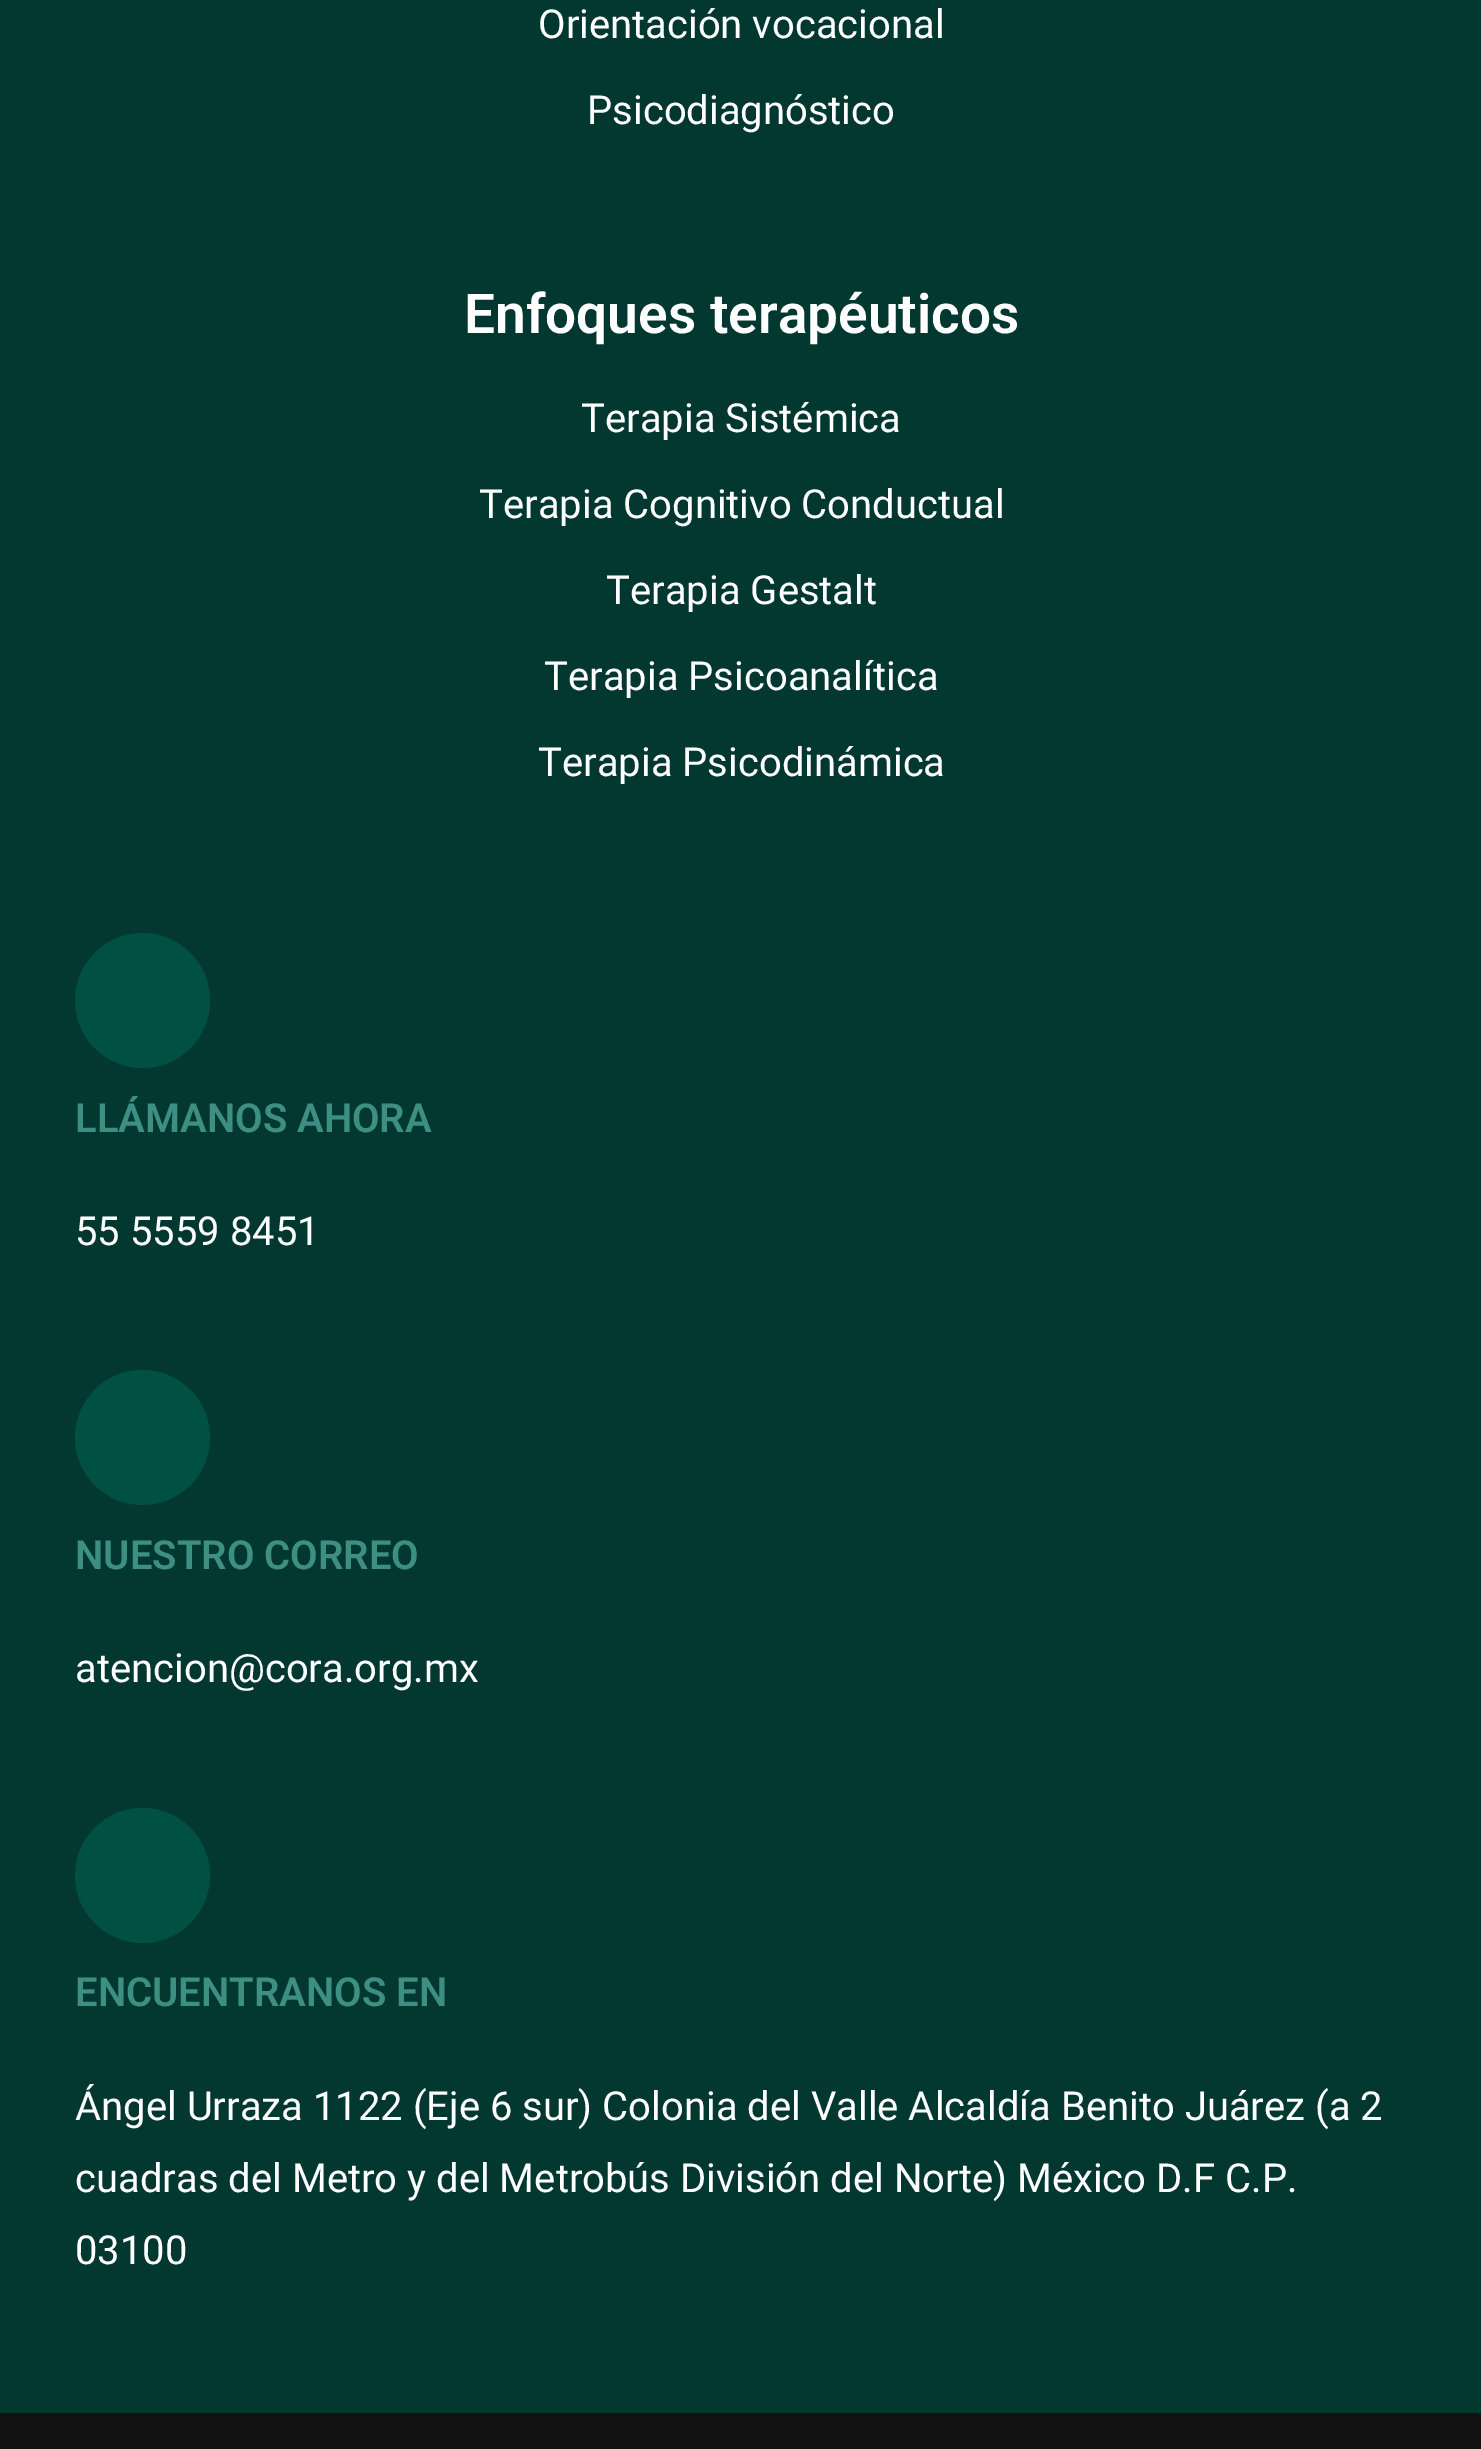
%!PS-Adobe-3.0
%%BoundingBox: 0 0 1481 2449
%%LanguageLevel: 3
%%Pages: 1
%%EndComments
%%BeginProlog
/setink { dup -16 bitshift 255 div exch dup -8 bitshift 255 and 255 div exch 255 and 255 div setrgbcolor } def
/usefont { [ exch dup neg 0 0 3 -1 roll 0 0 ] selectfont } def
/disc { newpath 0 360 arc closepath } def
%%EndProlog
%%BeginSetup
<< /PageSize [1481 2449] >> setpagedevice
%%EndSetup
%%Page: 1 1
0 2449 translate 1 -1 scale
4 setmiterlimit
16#033830 setink
0 0 1481 2449 rectfill
/Roboto-Regular 40 usefont
16#FFFFFF setink
538 38 moveto (Orientación vocacional) show
587 124 moveto (Psicodiagnóstico) show
/Roboto-SemiBold 55 usefont
464 333 moveto (Enfoques terapéuticos) show
/Roboto-Regular 40 usefont
[
    [(Terapia Sistémica) 581 432]
    [(Terapia Cognitivo Conductual) 479 518]
    [(Terapia Gestalt) 606 604]
    [(Terapia Psicoanalítica) 544 690]
    [(Terapia Psicodinámica) 538 776]
] { aload pop moveto show } forall
16#005043 setink
142.5 1000.5 67.5 disc fill
/Roboto-SemiBold 40 usefont
16#3E8F83 setink
75 1132 moveto (LLÁMANOS AHORA) show
/Roboto-Regular 40 usefont
16#FFFFFF setink
75 1245 moveto (55 5559 8451) show
16#005043 setink
142.5 1437.5 67.5 disc fill
/Roboto-SemiBold 40 usefont
16#3E8F83 setink
75 1569 moveto (NUESTRO CORREO) show
/Roboto-Regular 40 usefont
16#FFFFFF setink
75 1682 moveto (atencion@cora.org.mx) show
16#005043 setink
142.5 1875.5 67.5 disc fill
/Roboto-SemiBold 40 usefont
16#3E8F83 setink
75 2006 moveto (ENCUENTRANOS EN) show
/Roboto-Regular 40 usefont
16#FFFFFF setink
[
    [(Ángel Urraza 1122 \(Eje 6 sur\) Colonia del Valle Alcaldía Benito Juárez \(a 2) 75 2120]
    [(cuadras del Metro y del Metrobús División del Norte\) México D.F C.P.) 75 2192]
    [(03100) 75 2264]
] { aload pop moveto show } forall
16#111111 setink
0 2413 1481 36 rectfill
showpage
%%EOF
